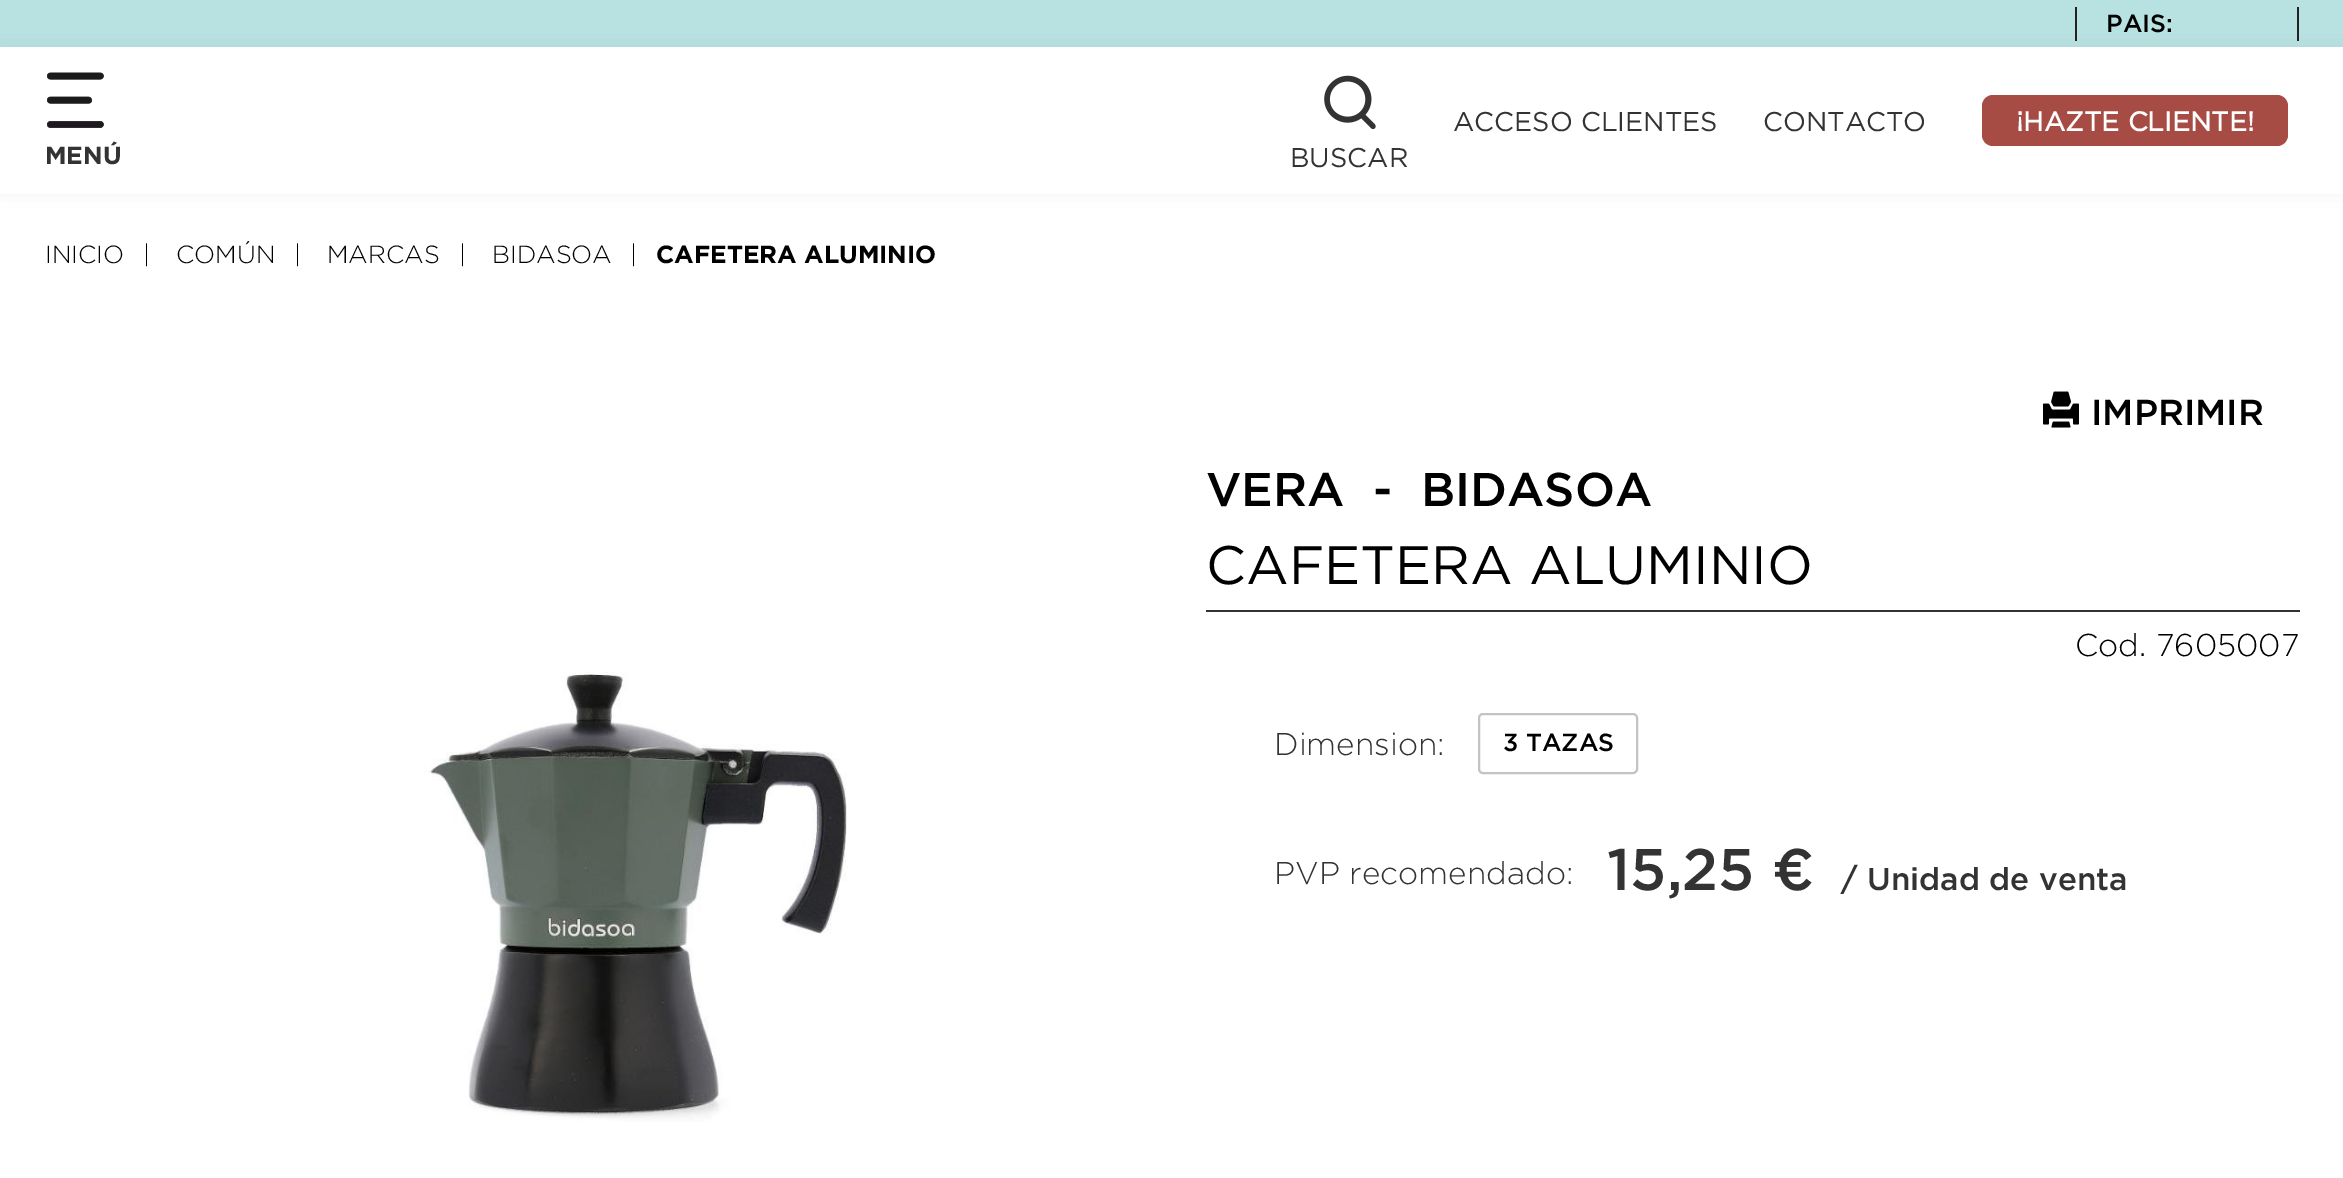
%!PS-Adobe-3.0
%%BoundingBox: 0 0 2343 1178
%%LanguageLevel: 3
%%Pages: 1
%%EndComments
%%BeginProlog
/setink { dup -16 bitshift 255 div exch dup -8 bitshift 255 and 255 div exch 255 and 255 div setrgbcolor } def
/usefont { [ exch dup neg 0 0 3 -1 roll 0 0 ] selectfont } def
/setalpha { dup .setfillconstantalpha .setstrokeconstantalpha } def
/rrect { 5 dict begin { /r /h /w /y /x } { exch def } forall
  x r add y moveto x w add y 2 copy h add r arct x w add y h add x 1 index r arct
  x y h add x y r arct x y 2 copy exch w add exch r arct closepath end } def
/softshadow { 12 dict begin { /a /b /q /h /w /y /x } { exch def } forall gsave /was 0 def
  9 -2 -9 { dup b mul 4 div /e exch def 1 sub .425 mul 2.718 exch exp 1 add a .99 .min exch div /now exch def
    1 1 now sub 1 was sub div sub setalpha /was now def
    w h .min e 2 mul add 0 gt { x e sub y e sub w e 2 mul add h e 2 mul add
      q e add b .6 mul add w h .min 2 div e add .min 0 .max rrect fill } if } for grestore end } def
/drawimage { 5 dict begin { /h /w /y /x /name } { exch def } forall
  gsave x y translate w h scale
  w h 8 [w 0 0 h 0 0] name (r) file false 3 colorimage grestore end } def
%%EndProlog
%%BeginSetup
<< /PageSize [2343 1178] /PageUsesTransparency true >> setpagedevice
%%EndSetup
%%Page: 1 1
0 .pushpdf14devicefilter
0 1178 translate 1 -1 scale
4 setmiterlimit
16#FFFFFF setink
0 0 2343 1178 rectfill
16#B8E1E2 setink
0 0 2343 47 rectfill
16#808080 setink
0 47 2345 147 0 11 0.12 softshadow
16#222222 setink
2297 7 2 34 rectfill
2075 7 2 34 rectfill
/Gotham-Medium 24.75 usefont
16#000000 setink
2106 32 moveto (PAIS:) show
16#FFFFFF setink
0 47 2343 147 rectfill
/Gotham-Regular 27 usefont
16#333333 setink
1453 131 moveto (ACCESO CLIENTES) show
1763 131 moveto (CONTACTO) show
16#A64C44 setink
1982 95 306 51 11 rrect fill
/Gotham-Bold 27 usefont
16#FFFFFF setink
2016 131 moveto (¡HAZTE CLIENTE!) show
(img1.raw) 47 72 57 56 drawimage
/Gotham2-Bold 24.75 usefont
16#333333 setink
45 164 moveto (MENÚ) show
(img2.raw) 1324 75 52 55 drawimage
/Gotham-Regular 27 usefont
1290 167 moveto (BUSCAR) show
/Gotham-Light 24.75 usefont
16#000000 setink
[
    [(INICIO) 45 263]
    [(|) 143 263]
    [(COMÚN) 176 263]
    [(|) 294 263]
    [(MARCAS) 327 263]
    [(|) 459 263]
    [(BIDASOA) 492 263]
    [(|) 630 263]
] { aload pop moveto show } forall
/Gotham2-Bold 24.75 usefont
656 263 moveto (CAFETERA ALUMINIO) show
(img3.raw) 424 672 423 450 drawimage
(img4.raw) 2043 391 36 37 drawimage
/Gotham-Medium 36 usefont
2091 425 moveto (IMPRIMIR) show
/Gotham-Medium 47.25 usefont
[
    [(VERA) 1206 506]
    [(-) 1373 506]
    [(BIDASOA) 1421 506]
] { aload pop moveto show } forall
/Gotham-Regular 54 usefont
1206 584 moveto (CAFETERA ALUMINIO) show
16#333333 setink
1206 610 1094 2 rectfill
/Gotham-Light 31.5 usefont
16#000000 setink
2075 656 moveto (Cod. 7605007) show
16#333333 setink
1274 755 moveto (Dimension:) show
16#C3C3C3 setink
2 setlinewidth
1479 714 158 59 4 rrect stroke
/Gotham-Medium 24.75 usefont
16#000000 setink
1503 751 moveto (3 TAZAS) show
/Gotham-Light 31.5 usefont
16#333333 setink
1274 884 moveto (PVP recomendado:) show
/Gotham-Medium 58.5 usefont
1607 890 moveto (15,25 €) show
/Gotham-Medium 31.5 usefont
1841 890 moveto (/ Unidad de venta) show
.poppdf14devicefilter showpage
%%EOF
